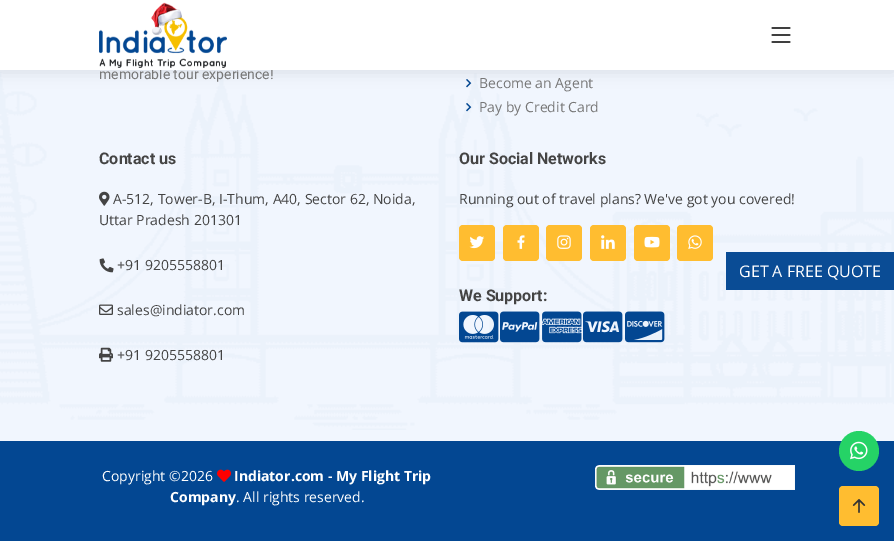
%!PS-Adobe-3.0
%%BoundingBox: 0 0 894 541
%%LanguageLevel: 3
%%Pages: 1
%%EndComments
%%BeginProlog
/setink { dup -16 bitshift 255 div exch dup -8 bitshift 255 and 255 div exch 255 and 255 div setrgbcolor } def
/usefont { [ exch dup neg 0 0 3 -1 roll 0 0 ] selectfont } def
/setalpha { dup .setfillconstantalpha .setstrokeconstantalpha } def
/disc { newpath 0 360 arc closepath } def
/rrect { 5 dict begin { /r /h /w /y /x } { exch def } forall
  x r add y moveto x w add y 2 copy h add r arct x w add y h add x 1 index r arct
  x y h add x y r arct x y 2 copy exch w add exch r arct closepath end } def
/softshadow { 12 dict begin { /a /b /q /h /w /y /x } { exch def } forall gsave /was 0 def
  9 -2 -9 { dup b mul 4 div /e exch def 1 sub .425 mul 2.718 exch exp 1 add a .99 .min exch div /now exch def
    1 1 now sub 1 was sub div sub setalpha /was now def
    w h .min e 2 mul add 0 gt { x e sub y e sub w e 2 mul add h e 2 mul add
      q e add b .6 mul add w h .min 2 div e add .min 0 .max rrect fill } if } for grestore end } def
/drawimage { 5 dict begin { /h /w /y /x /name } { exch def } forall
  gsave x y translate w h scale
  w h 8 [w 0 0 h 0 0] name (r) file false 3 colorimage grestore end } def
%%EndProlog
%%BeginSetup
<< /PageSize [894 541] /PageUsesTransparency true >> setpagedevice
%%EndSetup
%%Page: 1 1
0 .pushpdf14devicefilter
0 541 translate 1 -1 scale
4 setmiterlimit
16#F1F6FE setink
0 0 894 541 rectfill
(img3.raw) 0 72 894 358 drawimage
(img4.raw) 466 79 6 9 drawimage
16#000000 setink
0 2 894 70 0 7.5 0.1 softshadow
/Roboto-Regular 14 usefont
16#777777 setink
99 79 moveto (memorable tour experience!) show
16#FFFFFF setink
0 0 894 70 rectfill
(img1.raw) 99 2 128 66 drawimage
(img2.raw) 771 27 20 16 drawimage
/OpenSans-Regular 14 usefont
16#777777 setink
479 88 moveto (Become an Agent) show
(img5.raw) 466 103 6 9 drawimage
479 112 moveto (Pay by Credit Card) show
/Roboto-Bold 16 usefont
16#444444 setink
99 164 moveto (Contact us) show
(img6.raw) 99 191 11 15 drawimage
/OpenSans-Regular 14 usefont
113 204 moveto (A-512, Tower-B, I-Thum, A40, Sector 62, Noida,) show
99 225 moveto (Uttar Pradesh 201301) show
(img7.raw) 99 258 15 15 drawimage
117 270 moveto (+91 9205558801) show
(img8.raw) 99 304 14 11 drawimage
117 315 moveto (sales@indiator.com) show
(img9.raw) 99 347 14 15 drawimage
117 360 moveto (+91 9205558801) show
/Roboto-Bold 16 usefont
459 164 moveto (Our Social Networks) show
/OpenSans-Regular 14 usefont
459 204 moveto (Running out of travel plans? We've got you covered!) show
16#FFBD30 setink
459 225 36 36 4 rrect fill
(img10.raw) 469 236 16 13 drawimage
503 225 36 36 4 rrect fill
(img11.raw) 517 235 8 14 drawimage
546 225 36 36 4 rrect fill
(img12.raw) 557 235 14 14 drawimage
590 225 36 36 4 rrect fill
(img13.raw) 601 235 14 14 drawimage
634 225 36 36 4 rrect fill
(img14.raw) 644 236 16 12 drawimage
677 225 36 36 4 rrect fill
(img15.raw) 688 235 14 14 drawimage
/Roboto-Bold 16 usefont
16#444444 setink
459 301 moveto (We Support:) show
(img16.raw) 459 311 40 32 drawimage
(img17.raw) 500 311 40 32 drawimage
(img18.raw) 542 311 40 32 drawimage
(img19.raw) 583 311 40 32 drawimage
(img20.raw) 625 311 40 32 drawimage
16#034792 setink
0 441 894 100 rectfill
/OpenSans-Regular 14 usefont
16#FFFFFF setink
102 481 moveto (Copyright ©2026) show
(img21.raw) 217 469 14 13 drawimage
/OpenSans-Bold 14 usefont
234 481 moveto (Indiator.com - My Flight Trip) show
170 502 moveto (Company) show
/OpenSans-Regular 14 usefont
236 502 moveto (. All rights reserved.) show
(img22.raw) 595 465 200 25 drawimage
16#0A4C95 setink
726 252 168 38 rectfill
/OpenSans-Regular 16 usefont
16#FFFFFF setink
739 277 moveto (GET A FREE QUOTE) show
16#25D366 setink
859 451 20 disc fill
(img23.raw) 850 441 18 19 drawimage
16#FFBD30 setink
839 486 40 40 4 rrect fill
(img24.raw) 852 499 14 14 drawimage
.poppdf14devicefilter showpage
%%EOF
